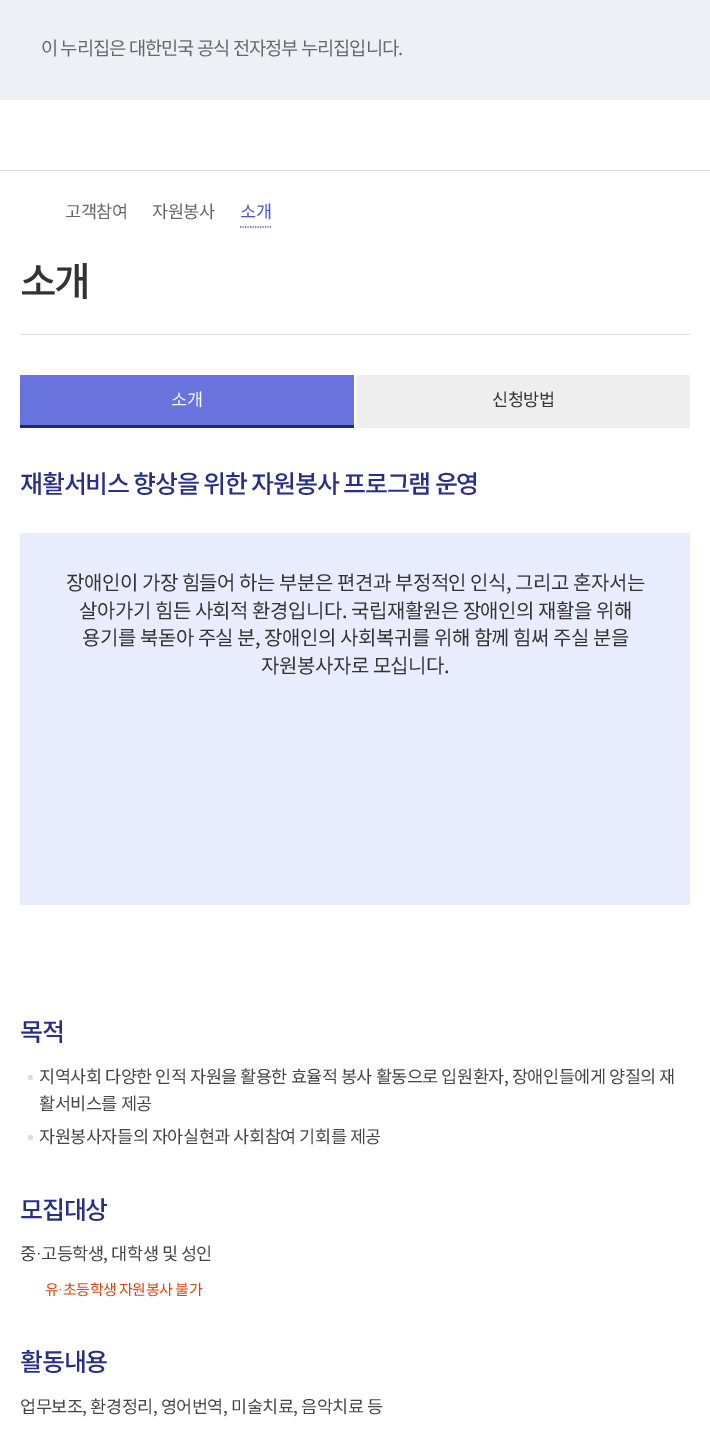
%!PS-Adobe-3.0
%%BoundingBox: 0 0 710 1441
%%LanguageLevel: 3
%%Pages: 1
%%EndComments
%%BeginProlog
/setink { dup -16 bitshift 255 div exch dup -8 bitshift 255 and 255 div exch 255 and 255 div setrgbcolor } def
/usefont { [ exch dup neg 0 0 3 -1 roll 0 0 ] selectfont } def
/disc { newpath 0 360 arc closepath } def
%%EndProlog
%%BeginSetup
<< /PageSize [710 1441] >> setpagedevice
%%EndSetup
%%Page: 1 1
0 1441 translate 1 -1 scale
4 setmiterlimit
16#FFFFFF setink
0 0 710 1441 rectfill
16#EDF1F5 setink
0 0 710 100 rectfill
/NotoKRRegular-Regular 18.75 usefont
16#666666 setink
41 55 moveto -1 0 (이 누리집은 대한민국 공식 전자정부 누리집입니다.) ashow
16#DDDDDD setink
0 170 710 1 rectfill
/NotoKRRegular-Regular 17.5 usefont
16#666666 setink
65 218 moveto -0.48 0 (고객참여) ashow
152 218 moveto -0.48 0 (자원봉사) ashow
16#4B55C7 setink
1.2 setlinewidth
[1.25 1.25] 0 setdash
240 227 moveto 271 227 lineto stroke
240 218 moveto -0.48 0 (소개) ashow
16#DDDDDD setink
20 334 670 1 rectfill
/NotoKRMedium-Medium 40 usefont
16#333333 setink
20 296 moveto -3 0 (소개) ashow
16#6873DD setink
20 375 334 50 rectfill
/NotoKRRegular-Regular 17.5 usefont
16#FFFFFF setink
171 406 moveto -0.48 0 (소개) ashow
16#1C2A70 setink
20 425 334 3 rectfill
16#EEEEEE setink
356 375 334 53 rectfill
16#333333 setink
492 406 moveto -0.48 0 (신청방법) ashow
/NotoKRMedium-Medium 25 usefont
16#282E89 setink
20 493 moveto -1.2 0 (재활서비스 향상을 위한 자원봉사 프로그램 운영) ashow
16#E9ECFC setink
20 533 670 372 rectfill
/NotoKRRegular-Regular 20 usefont
16#333333 setink
66 590 moveto -0.48 0 (장애인이 가장 힘들어 하는 부분은 편견과 부정적인 인식, 그리고 혼자서는) ashow
79 618 moveto -0.48 0 (살아가기 힘든 사회적 환경입니다. 국립재활원은 장애인의 재활을 위해) ashow
82 645 moveto -0.48 0 (용기를 북돋아 주실 분, 장애인의 사회복귀를 위해 함께 힘써 주실 분을) ashow
261 673 moveto -0.48 0 (자원봉사자로 모십니다.) ashow
/NotoKRMedium-Medium 25 usefont
16#282E89 setink
20 1041 moveto -1.2 0 (목적) ashow
16#DDDDDD setink
30.5 1077.5 2.5 disc fill
/NotoKRRegular-Regular 17.5 usefont
16#444444 setink
39 1083 moveto -0.48 0 (지역사회 다양한 인적 자원을 활용한 효율적 봉사 활동으로 입원환자, 장애인들에게 양질의 재) ashow
39 1110 moveto -0.48 0 (활서비스를 제공) ashow
16#DDDDDD setink
30.5 1137.5 2.5 disc fill
16#444444 setink
39 1143 moveto -0.48 0 (자원봉사자들의 자아실현과 사회참여 기회를 제공) ashow
/NotoKRMedium-Medium 25 usefont
16#282E89 setink
20 1219 moveto -1.2 0 (모집대상) ashow
/NotoKRRegular-Regular 17.5 usefont
16#444444 setink
20 1260 moveto -0.48 0 (중) ashow
/Dotum-Regular 17.5 usefont
36 1260 moveto -0.48 0 (·) ashow
/NotoKRRegular-Regular 17.5 usefont
41 1260 moveto -0.48 0 (고등학생, 대학생 및 성인) ashow
/NotoKRRegular-Regular 15 usefont
16#E0430C setink
45 1295 moveto -0.48 0 (유) ashow
/Dotum-Regular 15 usefont
58 1295 moveto -0.48 0 (·) ashow
/NotoKRRegular-Regular 15 usefont
63 1295 moveto -0.48 0 (초등학생 자원봉사 불가) ashow
/NotoKRMedium-Medium 25 usefont
16#282E89 setink
20 1371 moveto -1.2 0 (활동내용) ashow
/NotoKRRegular-Regular 17.5 usefont
16#444444 setink
20 1413 moveto -0.48 0 (업무보조, 환경정리, 영어번역, 미술치료, 음악치료 등) ashow
showpage
%%EOF
